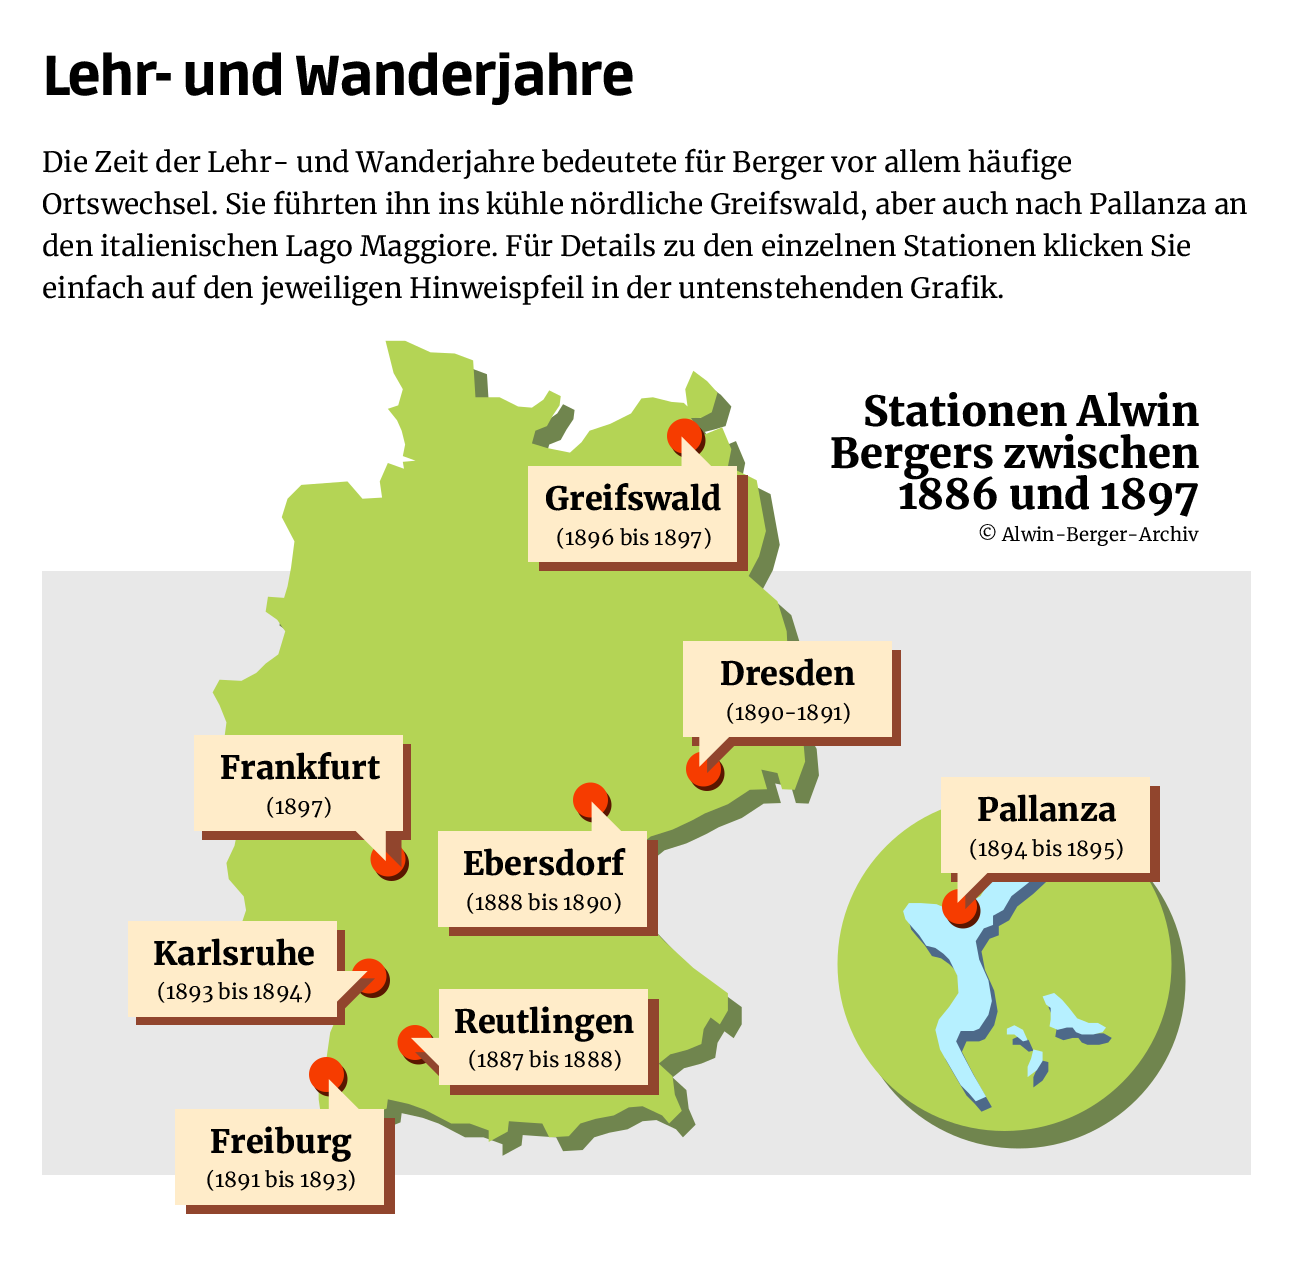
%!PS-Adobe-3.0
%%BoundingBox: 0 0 1293 1263
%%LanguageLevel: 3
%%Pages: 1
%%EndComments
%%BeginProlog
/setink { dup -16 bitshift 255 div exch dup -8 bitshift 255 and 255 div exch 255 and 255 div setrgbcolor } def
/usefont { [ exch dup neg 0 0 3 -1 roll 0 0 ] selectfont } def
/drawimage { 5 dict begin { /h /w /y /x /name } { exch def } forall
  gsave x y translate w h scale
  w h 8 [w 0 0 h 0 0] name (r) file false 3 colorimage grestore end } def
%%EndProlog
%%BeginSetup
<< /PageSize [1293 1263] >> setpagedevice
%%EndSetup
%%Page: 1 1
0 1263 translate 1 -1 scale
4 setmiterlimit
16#FFFFFF setink
0 0 1293 1263 rectfill
/Ruda-Black 56 usefont
16#000000 setink
42 95 moveto -1.7 0 (Lehr- und Wanderjahre) ashow
/Merriweather-Regular 28 usefont
[
    [(Die Zeit der Lehr- und Wanderjahre bedeutete für Berger vor allem häufige) 42 172]
    [(Ortswechsel. Sie führten ihn ins kühle nördliche Greifswald, aber auch nach Pallanza an) 42 214]
    [(den italienischen Lago Maggiore. Für Details zu den einzelnen Stationen klicken Sie) 42 256]
    [(einfach auf den jeweiligen Hinweispfeil in der untenstehenden Grafik.) 42 298]
] { aload pop moveto show } forall
(img1.raw) 42 340 1209 874 drawimage
/Merriweather-Black 41.5 usefont
863 426 moveto (Stationen Alwin) show
830 468 moveto (Bergers zwischen) show
/Merriweather-Black 32.25 usefont
545 510 moveto (Greifswald) show
/Merriweather-Black 41.5 usefont
898 509 moveto (1886 und 1897) show
/Merriweather-Regular 20.75 usefont
556 545 moveto (\(1896 bis 1897\)) show
/Merriweather-Regular 18.5 usefont
978 541 moveto (© Alwin-Berger-Archiv) show
/Merriweather-Black 32.25 usefont
720 685 moveto (Dresden) show
/Merriweather-Regular 20.75 usefont
726 720 moveto (\(1890-1891\)) show
/Merriweather-Black 32.25 usefont
220 779 moveto (Frankfurt) show
/Merriweather-Regular 20.75 usefont
266 814 moveto (\(1897\)) show
/Merriweather-Black 32.25 usefont
977 821 moveto (Pallanza) show
463 875 moveto (Ebersdorf) show
/Merriweather-Regular 20.75 usefont
969 856 moveto (\(1894 bis 1895\)) show
466 910 moveto (\(1888 bis 1890\)) show
/Merriweather-Black 32.25 usefont
153 965 moveto (Karlsruhe) show
/Merriweather-Regular 20.75 usefont
157 999 moveto (\(1893 bis 1894\)) show
/Merriweather-Black 32.25 usefont
454 1033 moveto (Reutlingen) show
/Merriweather-Regular 20.75 usefont
468 1067 moveto (\(1887 bis 1888\)) show
/Merriweather-Black 32.25 usefont
210 1153 moveto (Freiburg) show
/Merriweather-Regular 20.75 usefont
206 1187 moveto (\(1891 bis 1893\)) show
showpage
%%EOF
